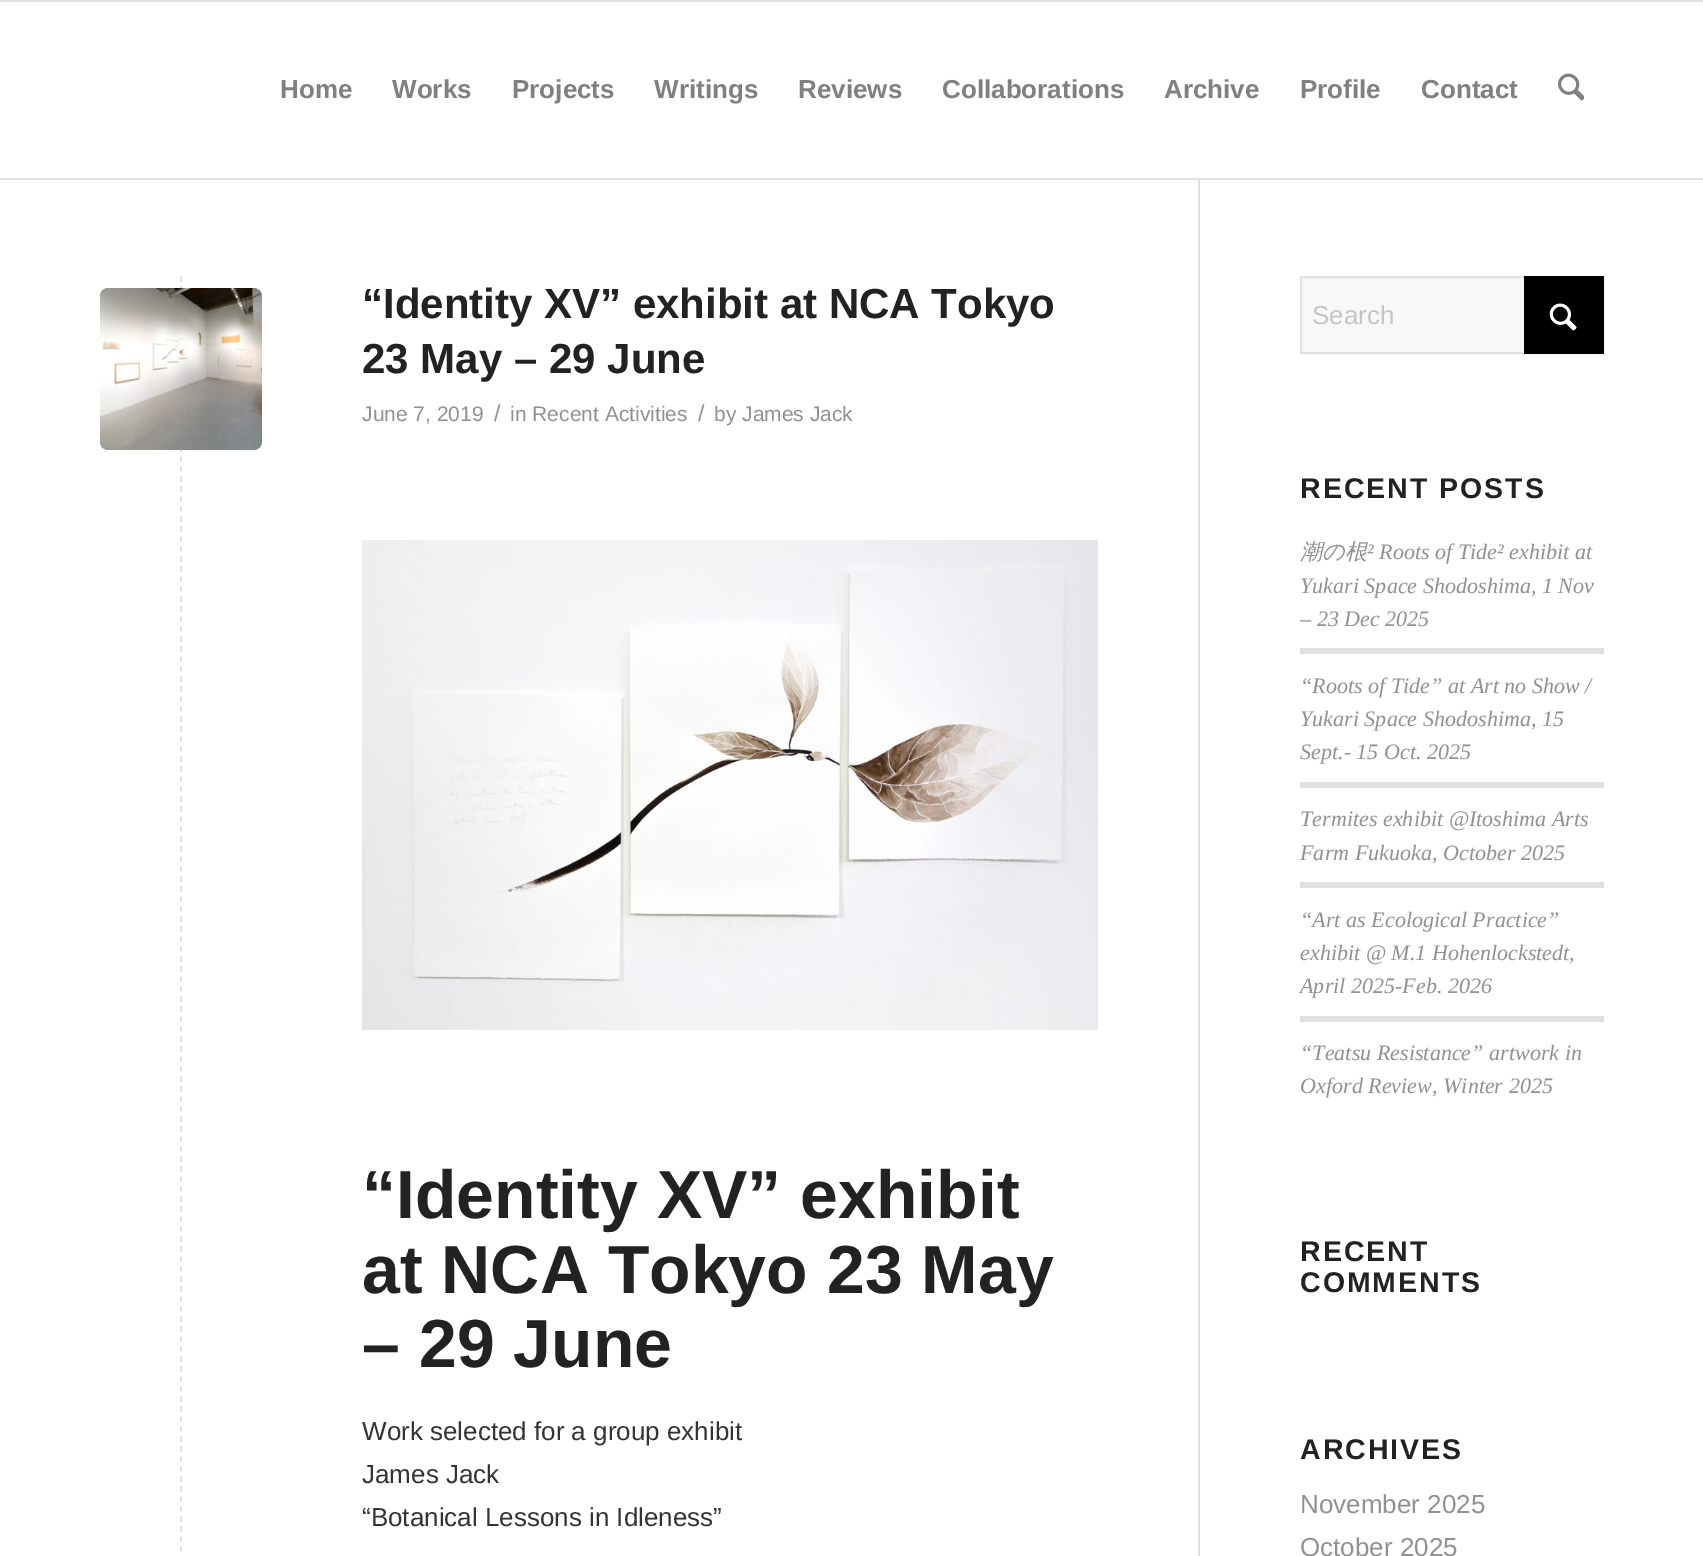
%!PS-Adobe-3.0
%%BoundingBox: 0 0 1703 1556
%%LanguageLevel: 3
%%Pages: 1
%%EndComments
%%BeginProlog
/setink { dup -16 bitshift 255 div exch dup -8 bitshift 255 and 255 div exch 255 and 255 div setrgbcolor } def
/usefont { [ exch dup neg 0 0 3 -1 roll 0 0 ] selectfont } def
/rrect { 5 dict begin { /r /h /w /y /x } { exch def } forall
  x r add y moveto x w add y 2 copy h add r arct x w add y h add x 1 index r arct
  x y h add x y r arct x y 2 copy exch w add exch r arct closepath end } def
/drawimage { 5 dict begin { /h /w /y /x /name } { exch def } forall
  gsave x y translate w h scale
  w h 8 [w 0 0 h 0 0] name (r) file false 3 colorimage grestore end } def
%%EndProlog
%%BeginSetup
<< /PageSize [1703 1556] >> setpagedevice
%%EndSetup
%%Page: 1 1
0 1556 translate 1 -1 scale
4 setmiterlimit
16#FFFFFF setink
0 0 1703 1556 rectfill
[
    [0 0 1703 2 16#E1E1E1]
    [1198 176 2 1380 16#E1E1E1]
    [0 178 1703 2 16#E1E1E1]
] { aload pop setink rectfill } forall
/LiberationSans-Bold 26 usefont
16#808080 setink
[
    [(Home) 280 98]
    [(Works) 392 98]
    [(Projects) 512 98]
    [(Writings) 654 98]
    [(Reviews) 798 98]
    [(Collaborations) 942 98]
    [(Archive) 1164 98]
    [(Profile) 1300 98]
    [(Contact) 1421 98]
] { aload pop moveto show } forall
(img1.raw) 1558 73 26 28 drawimage
16#FFFFFF setink
1198 176 2 2 rectfill
16#E1E1E1 setink
2 setlinewidth
[6 4] 0 setdash
181 276 moveto 181 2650 lineto stroke
/LiberationSans-Bold 42 usefont
16#222222 setink
362 318 moveto (“Identity XV” exhibit at NCA Tokyo) show
362 373 moveto (23 May – 29 June) show
/LiberationSans-Regular 21 usefont
16#919191 setink
362 421 moveto (June 7, 2019) show
/LiberationSans-Regular 23 usefont
494 421 moveto (/) show
/LiberationSans-Regular 21 usefont
510 421 moveto (in Recent Activities) show
/LiberationSans-Regular 23 usefont
698 421 moveto (/) show
/LiberationSans-Regular 21 usefont
714 421 moveto (by James Jack) show
(img2.raw) 362 540 736 490 drawimage
/LiberationSans-Bold 68 usefont
16#222222 setink
[
    [(“Identity XV” exhibit) 362 1218]
    [(at NCA Tokyo 23 May) 362 1293]
    [(– 29 June) 362 1367]
] { aload pop moveto show } forall
/LiberationSans-Regular 26 usefont
16#333333 setink
[
    [(Work selected for a group exhibit) 362 1440]
    [(James Jack) 362 1483]
    [(“Botanical Lessons in Idleness”) 362 1526]
] { aload pop moveto show } forall
16#919191 setink
100 288 162 162 8 rrect fill
(img3.raw) 100 288 162 162 drawimage
16#F8F8F8 setink
1302 278 222 74 rectfill
16#E1E1E1 setink
[] 0 setdash
1301 277 302 76 rectstroke
16#000000 setink
1524 276 80 78 rectfill
16#C5C5C5 setink
1312 324 moveto (Search) show
(img4.raw) 1549 303 28 28 drawimage
/LiberationSans-Bold 28.5 usefont
16#222222 setink
1300 498 moveto 2 0 (RECENT POSTS) ashow
/WenQuanYiZenHei-MediumItalic 22.1 usefont
16#919191 setink
1300 559 moveto (潮の根) show
/LiberationSerif-Italic 22.1 usefont
[
    [(² Roots of Tide² exhibit at) 1367 559]
    [(Yukari Space Shodoshima, 1 Nov) 1300 593]
    [(– 23 Dec 2025) 1300 626]
] { aload pop moveto show } forall
16#E1E1E1 setink
1300 648 304 6 rectfill
16#919191 setink
[
    [(“Roots of Tide” at Art no Show /) 1300 693]
    [(Yukari Space Shodoshima, 15) 1300 726]
    [(Sept.- 15 Oct. 2025) 1300 759]
] { aload pop moveto show } forall
16#E1E1E1 setink
1300 782 304 6 rectfill
16#919191 setink
1300 826 moveto (Termites exhibit @Itoshima Arts) show
1300 860 moveto (Farm Fukuoka, October 2025) show
16#E1E1E1 setink
1300 882 304 6 rectfill
16#919191 setink
[
    [(“Art as Ecological Practice”) 1300 927]
    [(exhibit @ M.1 Hohenlockstedt,) 1300 960]
    [(April 2025-Feb. 2026) 1300 993]
] { aload pop moveto show } forall
16#E1E1E1 setink
1300 1016 304 6 rectfill
16#919191 setink
1300 1060 moveto (“Teatsu Resistance” artwork in) show
1300 1093 moveto (Oxford Review, Winter 2025) show
/LiberationSans-Bold 28.5 usefont
16#222222 setink
1300 1261 moveto 2 0 (RECENT) ashow
1300 1292 moveto 2 0 (COMMENTS) ashow
1300 1459 moveto 2 0 (ARCHIVES) ashow
/LiberationSans-Regular 26 usefont
16#919191 setink
1300 1513 moveto (November 2025) show
1300 1556 moveto (October 2025) show
showpage
%%EOF
